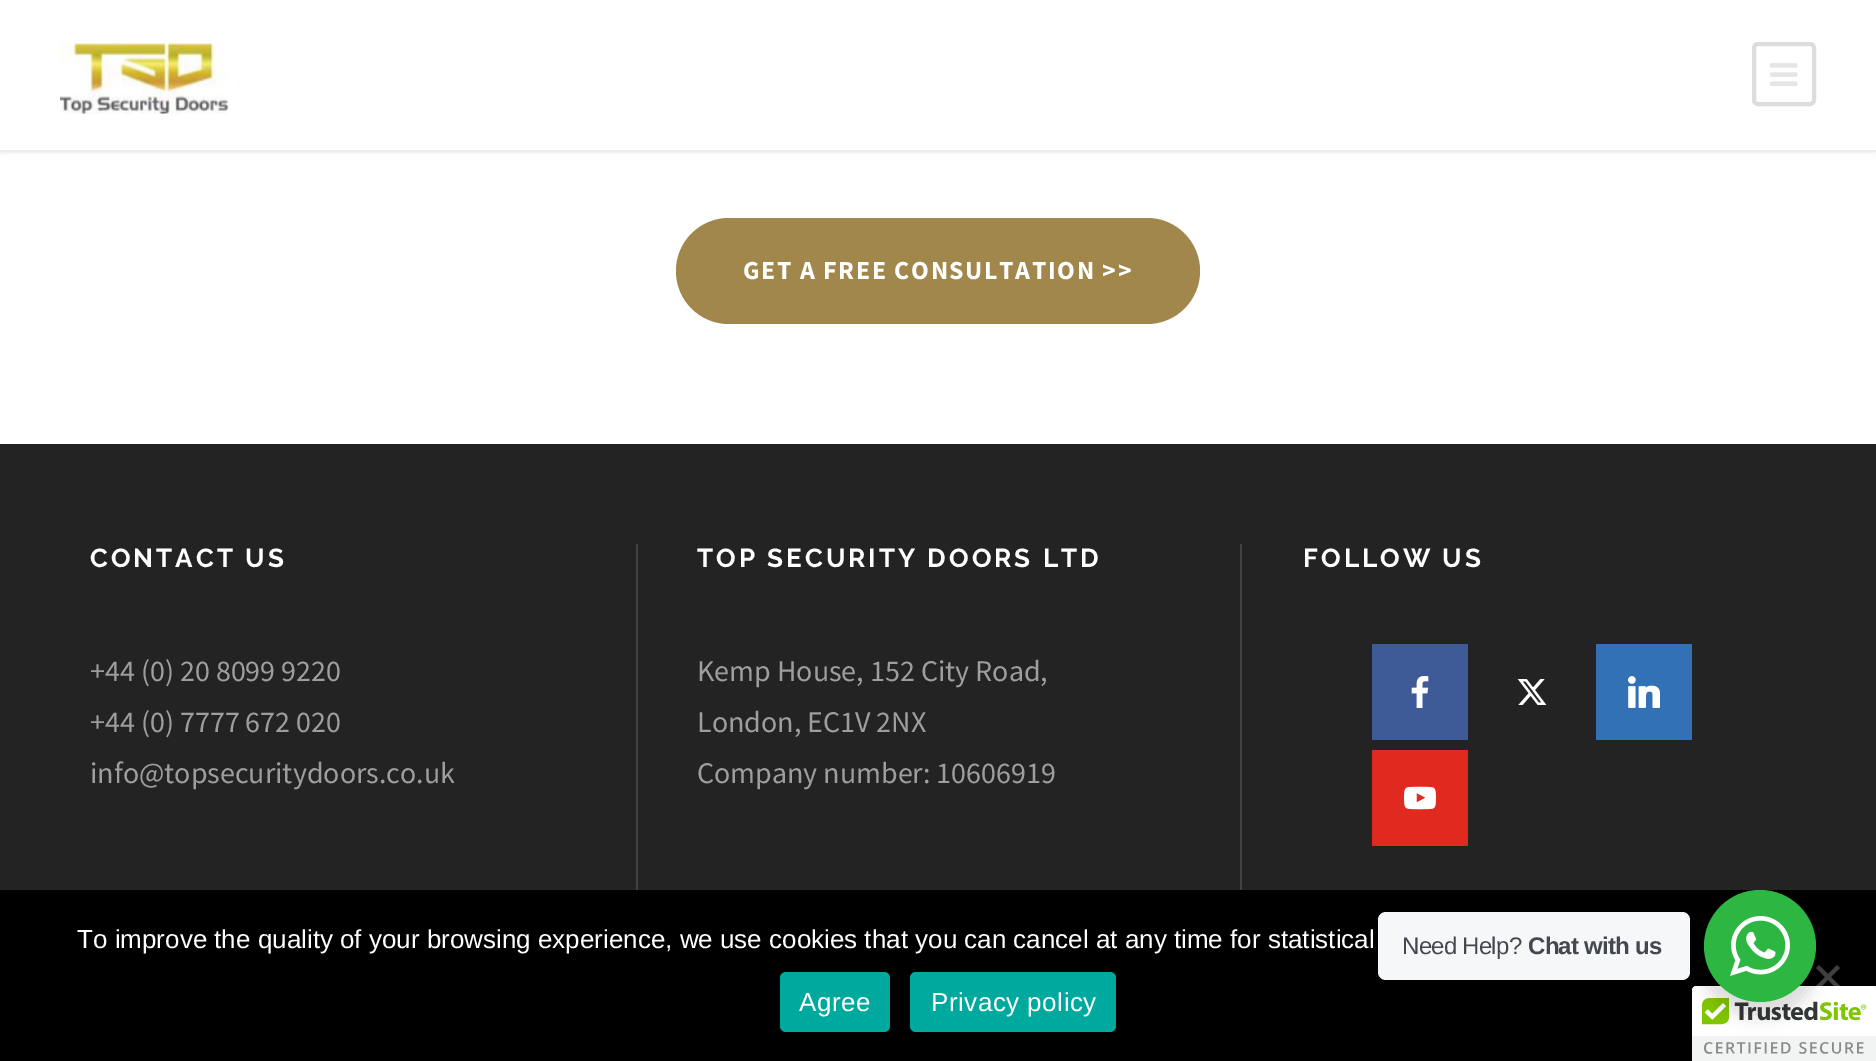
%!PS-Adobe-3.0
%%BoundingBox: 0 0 1876 1061
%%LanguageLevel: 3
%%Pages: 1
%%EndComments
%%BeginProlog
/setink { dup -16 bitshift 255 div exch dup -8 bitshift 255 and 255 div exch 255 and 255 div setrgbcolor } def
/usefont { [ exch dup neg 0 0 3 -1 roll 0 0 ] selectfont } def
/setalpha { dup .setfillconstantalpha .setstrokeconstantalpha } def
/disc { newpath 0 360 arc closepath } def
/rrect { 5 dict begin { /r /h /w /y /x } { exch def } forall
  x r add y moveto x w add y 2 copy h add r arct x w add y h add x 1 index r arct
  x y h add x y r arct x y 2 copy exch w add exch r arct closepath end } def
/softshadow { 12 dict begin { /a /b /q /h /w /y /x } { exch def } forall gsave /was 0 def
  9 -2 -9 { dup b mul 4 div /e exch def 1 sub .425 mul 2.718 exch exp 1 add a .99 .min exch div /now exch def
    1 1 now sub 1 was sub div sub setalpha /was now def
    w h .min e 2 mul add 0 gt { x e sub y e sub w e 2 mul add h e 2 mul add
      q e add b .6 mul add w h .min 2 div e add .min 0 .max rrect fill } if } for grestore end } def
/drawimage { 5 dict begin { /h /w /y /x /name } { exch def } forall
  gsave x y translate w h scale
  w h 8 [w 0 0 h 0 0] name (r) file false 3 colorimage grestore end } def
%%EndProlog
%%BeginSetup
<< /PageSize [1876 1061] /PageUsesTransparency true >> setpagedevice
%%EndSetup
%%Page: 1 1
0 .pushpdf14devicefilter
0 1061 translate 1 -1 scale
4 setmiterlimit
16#FFFFFF setink
0 0 1876 1061 rectfill
16#000000 setink
0 2 1876 150 0 2 0.1 softshadow
16#FFFFFF setink
0 0 1876 150 rectfill
(img1.raw) 60 43 169 71 drawimage
16#DDDDDD setink
4 setlinewidth
1754 44 60 60 4 rrect stroke
(img2.raw) 1770 63 28 23 drawimage
16#A1874C setink
676 218 524 106 53 rrect fill
/SourceSansPro-Bold 26 usefont
16#FFFFFF setink
743 279 moveto 1.6 0 (GET A FREE CONSULTATION >>) ashow
16#232323 setink
0 444 1876 446 rectfill
/Raleway-Bold 26 usefont
16#FFFFFF setink
90 567 moveto 3 0 (CONTACT US) ashow
/SourceSansPro-Regular 30 usefont
16#9E9E9E setink
[
    [(+44 \(0\) 20 8099 9220) 90 681]
    [(+44 \(0\) 7777 672 020) 90 732]
    [(info@topsecuritydoors.co.uk) 90 783]
] { aload pop moveto show } forall
16#424242 setink
636 544 2 346 rectfill
/Raleway-Bold 26 usefont
16#FFFFFF setink
697 567 moveto 3 0 (TOP SECURITY DOORS LTD) ashow
/SourceSansPro-Regular 30 usefont
16#9E9E9E setink
[
    [(Kemp House, 152 City Road,) 697 681]
    [(London, EC1V 2NX) 697 732]
    [(Company number: 10606919) 697 783]
] { aload pop moveto show } forall
16#424242 setink
1240 544 2 346 rectfill
/Raleway-Bold 26 usefont
16#FFFFFF setink
1303 567 moveto 3 0 (FOLLOW US) ashow
16#3E5B98 setink
1372 644 96 96 rectfill
(img3.raw) 1411 676 18 32 drawimage
(img4.raw) 1517 679 30 26 drawimage
16#3371B7 setink
1596 644 96 96 rectfill
(img5.raw) 1628 676 32 32 drawimage
16#E02A20 setink
1372 750 96 96 rectfill
(img6.raw) 1404 786 32 24 drawimage
16#000000 setink
0 890 1876 171 rectfill
/LiberationSans-Regular 26 usefont
16#FFFFFF setink
77 948 moveto (To improve the quality of your browsing experience, we use cookies that you can cancel at any time for statistical) show
16#404040 setink
1837 965 moveto 1840 968 lineto 1819 989 lineto 1816 986 lineto closepath fill
1816 968 moveto 1819 965 lineto 1840 986 lineto 1837 989 lineto closepath fill
16#00A99D setink
780 972 110 60 6 rrect fill
16#FFFFFF setink
799 1011 moveto 0.5 0 (Agree) ashow
16#00A99D setink
910 972 206 60 6 rrect fill
16#FFFFFF setink
931 1011 moveto 0.5 0 (Privacy policy) ashow
1696 986 moveto 1876 986 lineto 1876 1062 lineto 1692 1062 lineto 1692 990 lineto 1692 988 1694 986 1696 986 curveto closepath fill
(img8.raw) 1692 986 184 75 drawimage
16#000000 setink
1700 898 120 120 60 8 0.14 softshadow
16#F5F7F9 setink
1378 912 312 68 8 rrect fill
/LiberationSans-Regular 24 usefont
16#43474E setink
1402 954 moveto -0.75 0 (Need Help?) ashow
/LiberationSans-Bold 24 usefont
1528 954 moveto -0.75 0 (Chat with us) ashow
16#2DB742 setink
1760 946 56 disc fill
(img7.raw) 1730 916 60 60 drawimage
.poppdf14devicefilter showpage
%%EOF
